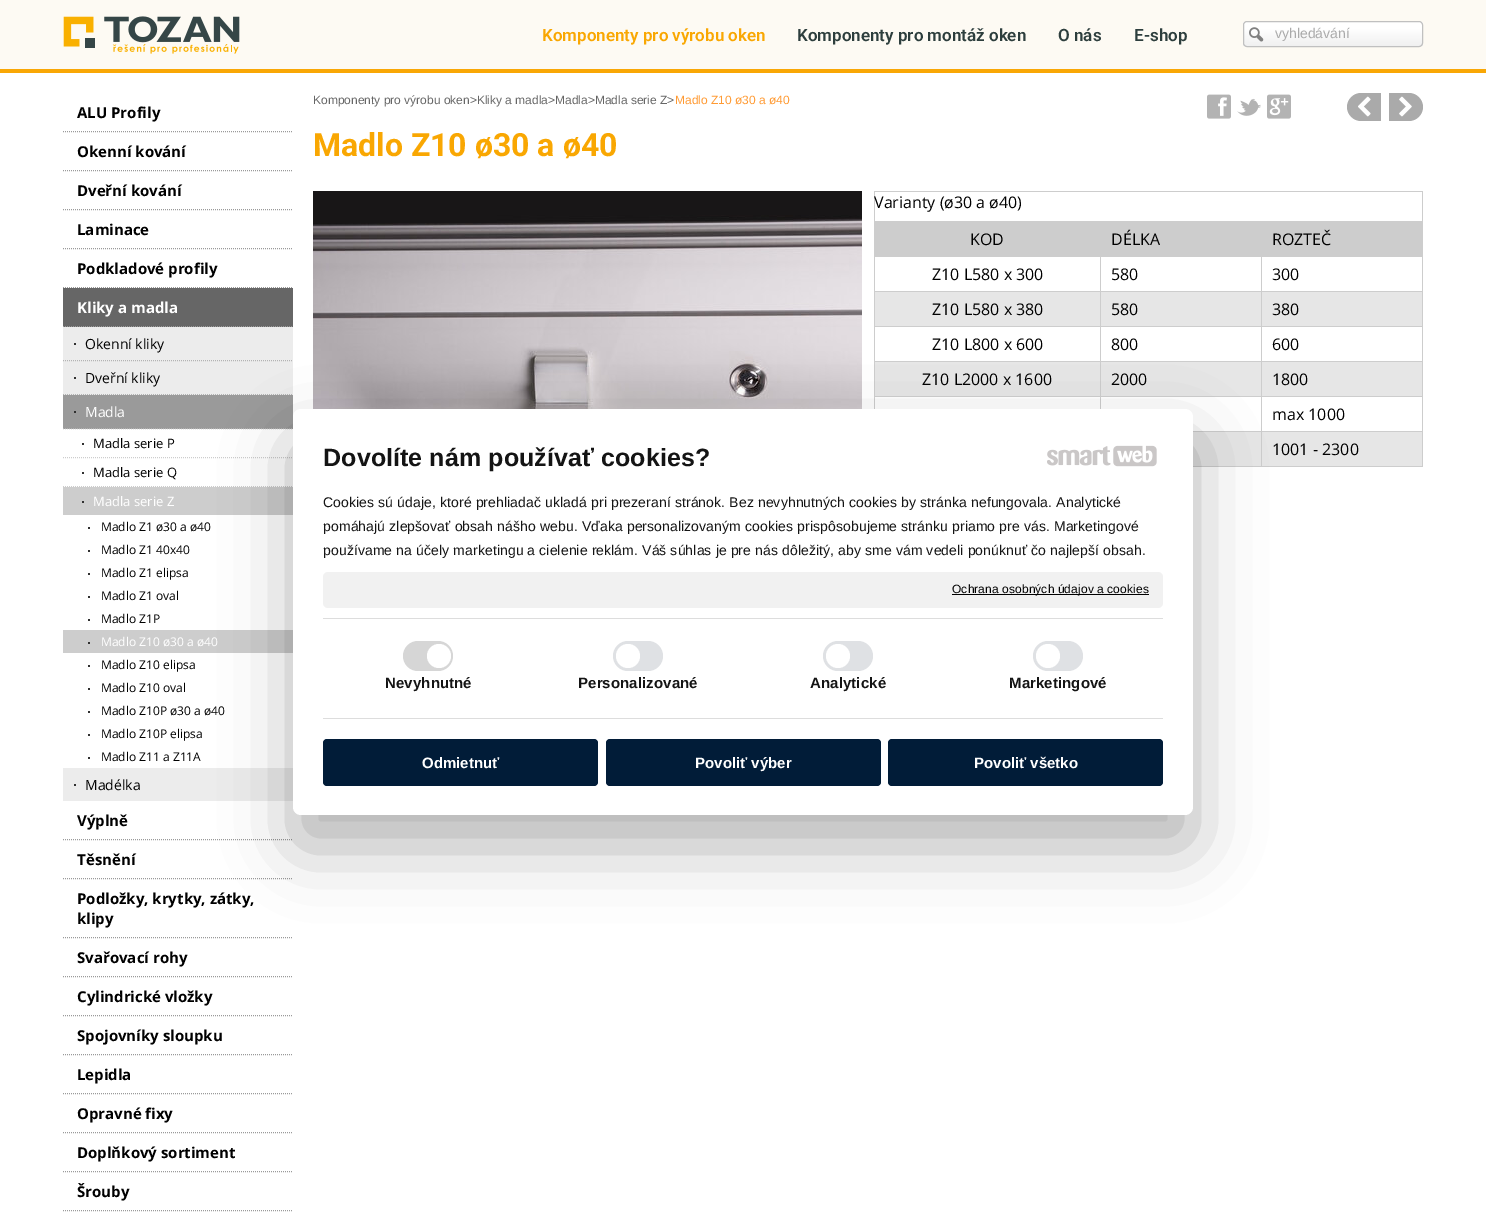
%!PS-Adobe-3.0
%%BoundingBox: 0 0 1486 1224
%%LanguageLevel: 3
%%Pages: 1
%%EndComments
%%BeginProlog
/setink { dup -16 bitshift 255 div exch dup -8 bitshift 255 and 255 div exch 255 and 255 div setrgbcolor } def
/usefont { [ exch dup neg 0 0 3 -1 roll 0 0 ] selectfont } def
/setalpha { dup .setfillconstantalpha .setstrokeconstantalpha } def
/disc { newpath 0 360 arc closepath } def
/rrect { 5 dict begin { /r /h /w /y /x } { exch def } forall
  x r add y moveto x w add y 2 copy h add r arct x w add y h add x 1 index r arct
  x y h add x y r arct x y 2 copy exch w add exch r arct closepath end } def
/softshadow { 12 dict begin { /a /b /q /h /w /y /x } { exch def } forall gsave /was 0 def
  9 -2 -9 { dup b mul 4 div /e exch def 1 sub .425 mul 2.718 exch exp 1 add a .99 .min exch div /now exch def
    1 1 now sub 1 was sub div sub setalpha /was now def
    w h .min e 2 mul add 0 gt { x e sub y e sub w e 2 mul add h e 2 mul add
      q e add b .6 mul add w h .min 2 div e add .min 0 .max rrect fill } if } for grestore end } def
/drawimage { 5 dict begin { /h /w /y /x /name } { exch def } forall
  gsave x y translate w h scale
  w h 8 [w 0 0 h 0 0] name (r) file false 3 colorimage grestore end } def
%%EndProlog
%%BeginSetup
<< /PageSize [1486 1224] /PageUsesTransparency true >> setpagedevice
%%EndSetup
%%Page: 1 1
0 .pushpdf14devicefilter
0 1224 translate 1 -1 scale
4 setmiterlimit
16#FFFFFF setink
0 0 1486 1224 rectfill
16#FDFAF3 setink
0 0 1486 69 rectfill
16#F9A705 setink
0 69 1486 4 rectfill
(img1.raw) 63 16 177 38 drawimage
/Roboto-SemiBold 17 usefont
16#F9A702 setink
542 41 moveto (Komponenty pro výrobu oken) show
16#2D3E3D setink
[
    [(Komponenty pro montáž oken) 797 41]
    [(O nás) 1058 41]
    [(E-shop) 1134 41]
] { aload pop moveto show } forall
gsave
1243 21 180 26 4 rrect clip newpath
gsave 1243 22 moveto 1423 22 lineto 1423 46 lineto 1243 46 lineto closepath clip newpath
<< /ShadingType 2 /ColorSpace /DeviceRGB /Coords [1333 22 1333 46] /Extend [true true] /Function << /FunctionType 3 /Domain [0 1] /Functions [<< /FunctionType 2 /Domain [0 1] /C0 [1 1 1] /C1 [1 1 1] /N 1 >> << /FunctionType 2 /Domain [0 1] /C0 [1 1 1] /C1 [0.941 0.941 0.941] /N 1 >>] /Bounds [0.27] /Encode [0 1 0 1] >> >> shfill grestore
grestore
16#C0C0C0 setink
1243.5 21.5 179 25 3.5 rrect stroke
(img2.raw) 1249 27 15 15 drawimage
/LiberationSans-Regular 14 usefont
16#AAAAAA setink
1275 38 moveto (vyhledávání) show
16#9A9A9A setink
[1 1] 0 setdash
63 131.5 moveto 293 131.5 lineto stroke
/OpenSans-Bold 15 usefont
16#000000 setink
77 118 moveto (ALU Profily) show
16#9A9A9A setink
63 170.5 moveto 293 170.5 lineto stroke
16#000000 setink
77 157 moveto (Okenní kování) show
16#9A9A9A setink
63 209.5 moveto 293 209.5 lineto stroke
16#000000 setink
77 196 moveto (Dveřní kování) show
16#9A9A9A setink
63 248.5 moveto 293 248.5 lineto stroke
16#000000 setink
77 235 moveto (Laminace) show
16#9A9A9A setink
63 287.5 moveto 293 287.5 lineto stroke
16#000000 setink
77 274 moveto (Podkladové profily) show
16#666666 setink
63 288 230 39 rectfill
16#9A9A9A setink
63 326.5 moveto 293 326.5 lineto stroke
16#FFFFFF setink
77 313 moveto (Kliky a madla) show
16#ECECEC setink
63 327 230 68 rectfill
16#303030 setink
74 343 2 2 rectfill
16#B3B3B3 setink
63 360.5 moveto 293 360.5 lineto stroke
/OpenSans-Regular 14 usefont
16#000000 setink
85 349 moveto (Okenní kliky) show
16#303030 setink
74 377 2 2 rectfill
16#B3B3B3 setink
63 394.5 moveto 293 394.5 lineto stroke
16#000000 setink
85 383 moveto (Dveřní kliky) show
16#9A9A9A setink
63 395 230 34 rectfill
16#303030 setink
74 411 2 2 rectfill
16#B3B3B3 setink
63 428.5 moveto 293 428.5 lineto stroke
16#FFFFFF setink
85 417 moveto (Madla) show
16#303030 setink
82 443 2 2 rectfill
16#CDCDCD setink
63 457.5 moveto 293 457.5 lineto stroke
/OpenSans-Regular 13 usefont
16#000000 setink
93 448 moveto (Madla serie P) show
16#303030 setink
82 472 2 2 rectfill
16#CDCDCD setink
63 486.5 moveto 293 486.5 lineto stroke
16#000000 setink
93 477 moveto (Madla serie Q) show
16#CDCDCD setink
63 487 230 28 rectfill
16#303030 setink
82 501 2 2 rectfill
16#FFFFFF setink
93 506 moveto (Madla serie Z) show
16#303030 setink
88 527 2 2 rectfill
/OpenSans-Regular 12 usefont
16#000000 setink
101 531 moveto (Madlo Z1 ø30 a ø40) show
16#303030 setink
88 550 2 2 rectfill
16#000000 setink
101 554 moveto (Madlo Z1 40x40) show
16#303030 setink
88 573 2 2 rectfill
16#000000 setink
101 577 moveto (Madlo Z1 elipsa) show
16#303030 setink
88 596 2 2 rectfill
16#000000 setink
101 600 moveto (Madlo Z1 oval) show
16#303030 setink
88 619 2 2 rectfill
16#000000 setink
101 623 moveto (Madlo Z1P) show
16#CDCDCD setink
63 630 230 23 rectfill
16#303030 setink
88 642 2 2 rectfill
16#FFFFFF setink
101 646 moveto (Madlo Z10 ø30 a ø40) show
16#303030 setink
88 665 2 2 rectfill
16#000000 setink
101 669 moveto (Madlo Z10 elipsa) show
16#303030 setink
88 688 2 2 rectfill
16#000000 setink
101 692 moveto (Madlo Z10 oval) show
16#303030 setink
88 711 2 2 rectfill
16#000000 setink
101 715 moveto (Madlo Z10P ø30 a ø40) show
16#303030 setink
88 734 2 2 rectfill
16#000000 setink
101 738 moveto (Madlo Z10P elipsa) show
16#303030 setink
88 757 2 2 rectfill
16#000000 setink
101 761 moveto (Madlo Z11 a Z11A) show
16#ECECEC setink
63 768 230 33 rectfill
16#303030 setink
74 784 2 2 rectfill
/OpenSans-Regular 14 usefont
16#000000 setink
85 790 moveto (Madélka) show
16#9A9A9A setink
63 839.5 moveto 293 839.5 lineto stroke
/OpenSans-Bold 15 usefont
16#000000 setink
77 826 moveto (Výplně) show
16#9A9A9A setink
63 878.5 moveto 293 878.5 lineto stroke
16#000000 setink
77 865 moveto (Těsnění) show
16#9A9A9A setink
63 937.5 moveto 293 937.5 lineto stroke
16#000000 setink
77 904 moveto (Podložky, krytky, zátky,) show
77 924 moveto (klipy) show
16#9A9A9A setink
63 976.5 moveto 293 976.5 lineto stroke
16#000000 setink
77 963 moveto (Svařovací rohy) show
16#9A9A9A setink
63 1015.5 moveto 293 1015.5 lineto stroke
16#000000 setink
77 1002 moveto (Cylindrické vložky) show
16#9A9A9A setink
63 1054.5 moveto 293 1054.5 lineto stroke
16#000000 setink
77 1041 moveto (Spojovníky sloupku) show
16#9A9A9A setink
63 1093.5 moveto 293 1093.5 lineto stroke
16#000000 setink
77 1080 moveto (Lepidla) show
16#9A9A9A setink
63 1132.5 moveto 293 1132.5 lineto stroke
16#000000 setink
77 1119 moveto (Opravné fixy) show
16#9A9A9A setink
63 1171.5 moveto 293 1171.5 lineto stroke
16#000000 setink
77 1158 moveto (Doplňkový sortiment) show
16#9A9A9A setink
63 1210.5 moveto 293 1210.5 lineto stroke
16#000000 setink
77 1197 moveto (Šrouby) show
/LiberationSans-Regular 12 usefont
16#666666 setink
313 104 moveto (Komponenty pro výrobu oken>Kliky a madla>Madla>Madla serie Z>) show
16#FF9A33 setink
675 104 moveto (Madlo Z10 ø30 a ø40) show
(img3.raw) 1207 94 24 25 drawimage
(img4.raw) 1237 98 24 18 drawimage
(img5.raw) 1267 94 24 25 drawimage
16#AAAAAA setink
1361 93 moveto 1381 93 lineto 1381 121 lineto 1361 121 lineto 1353.5 121 1347 114.5 1347 107 curveto 1347 99.5 1353.5 93 1361 93 curveto closepath fill
(img6.raw) 1358 96 13 21 drawimage
1389 93 moveto 1409 93 lineto 1416.5 93 1423 99.5 1423 107 curveto 1423 114.5 1416.5 121 1409 121 curveto 1389 121 lineto closepath fill
(img7.raw) 1399 96 13 21 drawimage
/Roboto-Bold 32 usefont
16#F9A702 setink
313 156 moveto (Madlo Z10 ø30 a ø40) show
(img8.raw) 313 191 549 218 drawimage
[
    [874 191 549 1 16#CDCDCD]
    [1422 191 1 276 16#CDCDCD]
    [1193 466 230 1 16#CDCDCD]
    [874 191 1 218 16#CDCDCD]
] { aload pop setink rectfill } forall
/OpenSans-Regular 16 usefont
16#000000 setink
874 208 moveto (Varianty \(ø30 a ø40\)) show
16#CDCDCD setink
875 222 547 35 rectfill
16#000000 setink
970 245 moveto (KOD) show
1111 245 moveto (DÉLKA) show
16#CDCDCD setink
874 221 549 1 rectfill
16#000000 setink
1272 245 moveto (ROZTEČ) show
932 280 moveto (Z10 L580 x 300) show
[
    [1261 291 162 1 16#CDCDCD]
    [1261 326 162 1 16#CDCDCD]
    [1261 361 162 1 16#CDCDCD]
    [1261 396 162 1 16#CDCDCD]
    [1261 431 162 1 16#CDCDCD]
    [1261 431 1 36 16#CDCDCD]
    [1193 431 69 1 16#CDCDCD]
    [1261 396 1 36 16#CDCDCD]
    [1100 396 162 1 16#CDCDCD]
    [1261 361 1 36 16#CDCDCD]
    [1100 361 162 1 16#CDCDCD]
    [1261 326 1 36 16#CDCDCD]
    [1100 326 162 1 16#CDCDCD]
    [1261 291 1 36 16#CDCDCD]
    [1100 291 162 1 16#CDCDCD]
    [1100 396 1 13 16#CDCDCD]
    [874 396 227 1 16#CDCDCD]
    [1100 361 1 36 16#CDCDCD]
    [874 361 227 1 16#CDCDCD]
    [1100 326 1 36 16#CDCDCD]
    [874 326 227 1 16#CDCDCD]
    [1100 291 1 36 16#CDCDCD]
    [874 291 227 1 16#CDCDCD]
    [1100 256 1 36 16#CDCDCD]
] { aload pop setink rectfill } forall
16#000000 setink
1111 280 moveto (580) show
16#CDCDCD setink
1261 256 1 36 rectfill
16#000000 setink
1272 280 moveto (300) show
16#E6E6E6 setink
875 292 225 34 rectfill
16#000000 setink
932 315 moveto (Z10 L580 x 380) show
16#E6E6E6 setink
1101 292 160 34 rectfill
16#000000 setink
1111 315 moveto (580) show
16#E6E6E6 setink
1262 292 160 34 rectfill
16#000000 setink
[
    [(380) 1272 315]
    [(Z10 L800 x 600) 932 350]
    [(800) 1111 350]
    [(600) 1272 350]
] { aload pop moveto show } forall
16#E6E6E6 setink
875 362 225 34 rectfill
16#000000 setink
922 385 moveto (Z10 L2000 x 1600) show
16#E6E6E6 setink
1101 362 160 34 rectfill
16#000000 setink
1111 385 moveto (2000) show
16#E6E6E6 setink
1262 362 160 34 rectfill
16#000000 setink
1272 385 moveto (1800) show
1272 420 moveto (max 1000) show
16#E6E6E6 setink
1193 432 68 34 rectfill
1262 432 160 34 rectfill
16#000000 setink
1272 455 moveto (1001 - 2300) show
293 441 900 406 8 34 0.3 softshadow
16#FFFFFF setink
293 409 900 406 8 rrect fill
/LiberationSans-Bold 25 usefont
16#141414 setink
323 466 moveto 0.1 0 (Dovolíte nám používať cookies?) ashow
(img9.raw) 1047 446 64 20 drawimage
(img10.raw) 1113 445 44 22 drawimage
/LiberationSans-Regular 14 usefont
323 507 moveto 0.1 0 (Cookies sú údaje, ktoré prehliadač ukladá pri prezeraní stránok. Bez nevyhnutných cookies by stránka nefungovala. Analytické) ashow
323 531 moveto 0.1 0 (pomáhajú zlepšovať obsah nášho webu. Vďaka personalizovaným cookies prispôsobujeme stránku priamo pre vás. Marketingové) ashow
323 555 moveto 0.1 0 (používame na účely marketingu a cielenie reklám. Váš súhlas je pre nás dôležitý, aby sme vám vedeli ponúknuť čo najlepší obsah.) ashow
16#F1F1F1 setink
323 572 840 36 5 rrect fill
16#000000 setink
952 594 197 1 rectfill
/LiberationSans-Regular 12 usefont
952 593 moveto 0.1 0 (Ochrana osobných údajov a cookies) ashow
16#DDDDDD setink
323 618 840 1 rectfill
323 718 840 1 rectfill
16#D6D6D6 setink
403 641 50 30 15 rrect fill
16#FFFFFF setink
439 656 12 disc fill
/LiberationSans-Bold 15 usefont
16#141414 setink
385 688 moveto 0.1 0 (Nevyhnutné) ashow
16#DFE1E4 setink
613 641 50 30 15 rrect fill
16#FFFFFF setink
628 656 12 disc fill
16#141414 setink
578 688 moveto 0.1 0 (Personalizované) ashow
16#DFE1E4 setink
823 641 50 30 15 rrect fill
16#FFFFFF setink
838 656 12 disc fill
16#141414 setink
810 688 moveto 0.1 0 (Analytické) ashow
16#DFE1E4 setink
1033 641 50 30 15 rrect fill
16#FFFFFF setink
1048 656 12 disc fill
16#141414 setink
1009 688 moveto 0.1 0 (Marketingové) ashow
16#011C38 setink
323 739 275 47 4 rrect fill
16#FFFFFF setink
422 768 moveto (Odmietnuť) show
16#011C38 setink
606 739 275 47 4 rrect fill
16#FFFFFF setink
695 768 moveto (Povoliť výber) show
16#011C38 setink
888 739 275 47 4 rrect fill
16#FFFFFF setink
974 768 moveto (Povoliť všetko) show
.poppdf14devicefilter showpage
%%EOF
